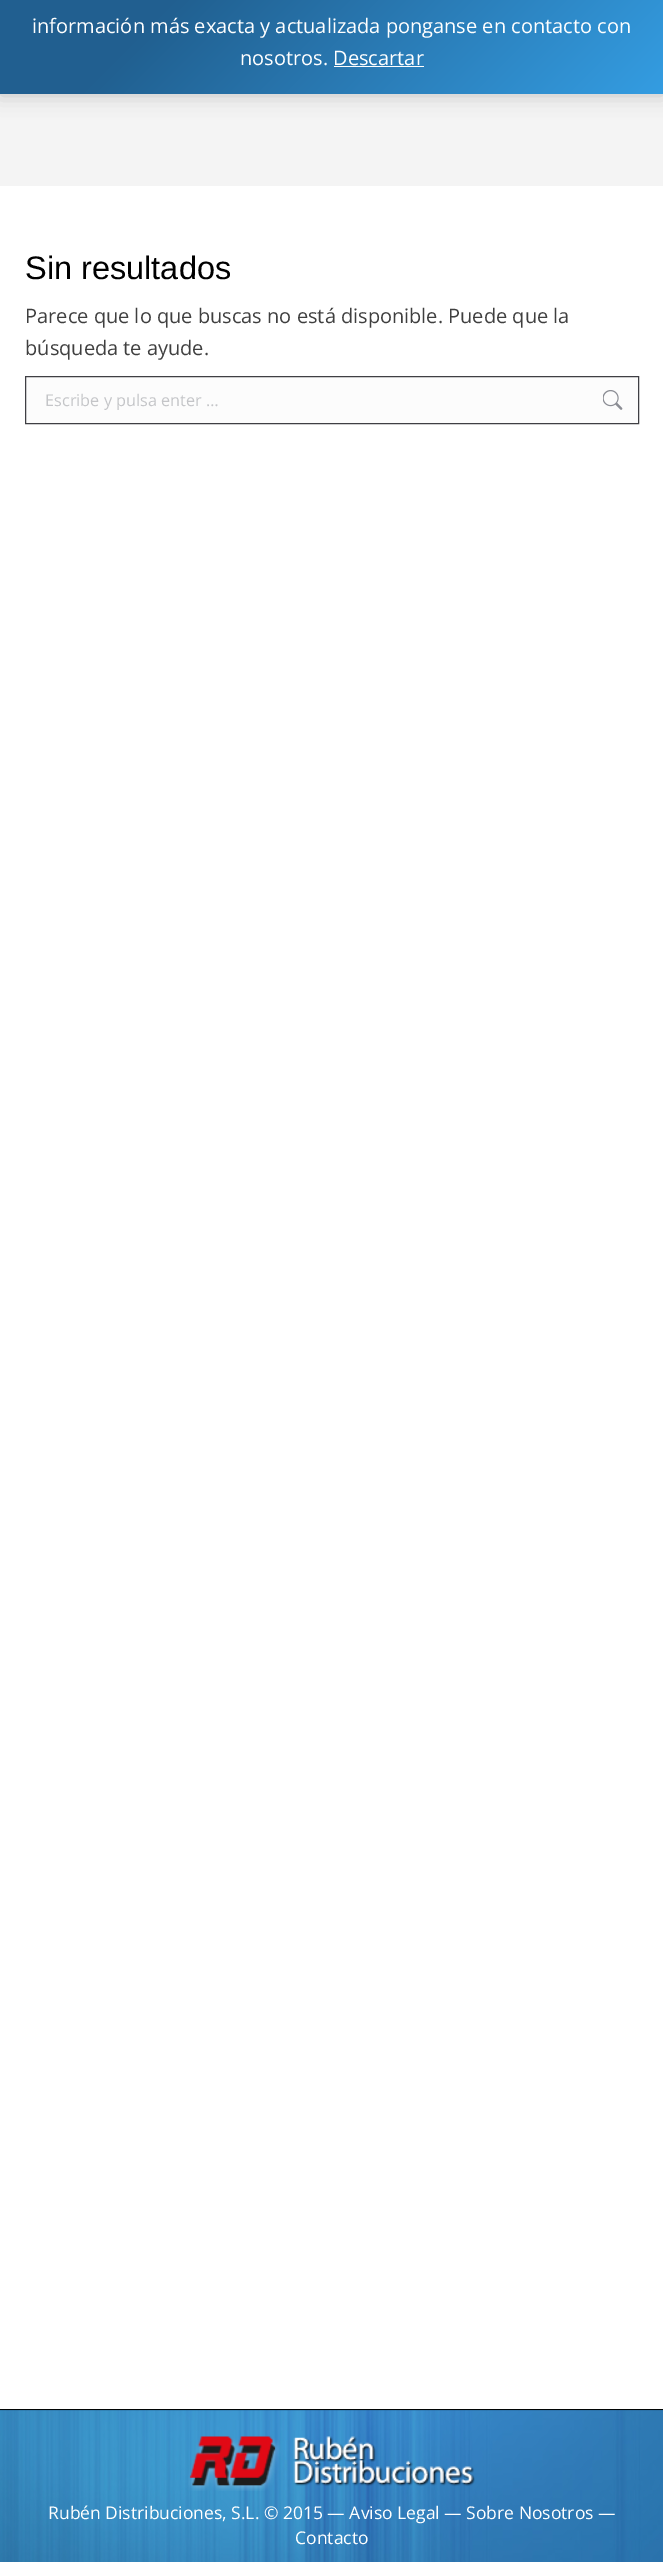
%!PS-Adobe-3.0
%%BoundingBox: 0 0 663 2562
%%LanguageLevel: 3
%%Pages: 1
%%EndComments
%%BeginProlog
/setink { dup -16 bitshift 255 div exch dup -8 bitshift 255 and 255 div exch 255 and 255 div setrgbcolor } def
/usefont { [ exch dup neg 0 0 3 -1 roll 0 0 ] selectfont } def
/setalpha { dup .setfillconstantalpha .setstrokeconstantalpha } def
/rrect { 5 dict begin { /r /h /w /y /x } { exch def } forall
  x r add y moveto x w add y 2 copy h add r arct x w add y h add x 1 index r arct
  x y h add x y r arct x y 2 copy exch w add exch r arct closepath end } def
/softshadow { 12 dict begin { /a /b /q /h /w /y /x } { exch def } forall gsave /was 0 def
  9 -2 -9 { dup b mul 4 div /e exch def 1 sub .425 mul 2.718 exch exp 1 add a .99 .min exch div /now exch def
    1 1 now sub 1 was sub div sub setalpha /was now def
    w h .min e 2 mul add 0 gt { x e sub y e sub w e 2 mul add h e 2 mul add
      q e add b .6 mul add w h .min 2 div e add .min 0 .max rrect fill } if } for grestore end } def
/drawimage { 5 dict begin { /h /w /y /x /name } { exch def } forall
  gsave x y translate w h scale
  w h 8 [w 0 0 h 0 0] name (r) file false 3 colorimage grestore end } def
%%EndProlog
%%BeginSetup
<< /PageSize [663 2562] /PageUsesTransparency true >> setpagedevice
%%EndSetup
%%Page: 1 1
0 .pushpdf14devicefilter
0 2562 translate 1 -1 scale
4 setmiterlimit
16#FFFFFF setink
0 0 663 2562 rectfill
16#F4F4F4 setink
0 94 663 92 rectfill
16#000000 setink
0 -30 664 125 0 10 0.2 softshadow
gsave 0 0 moveto 663 0 lineto 663 94 lineto 0 94 lineto closepath clip newpath
<< /ShadingType 2 /ColorSpace /DeviceRGB /Coords [123 -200 540 217] /Extend [true true] /Function << /FunctionType 3 /Domain [0 1] /Functions [<< /FunctionType 2 /Domain [0 1] /C0 [0.129 0.373 0.565] /C1 [0.129 0.373 0.565] /N 1 >> << /FunctionType 2 /Domain [0 1] /C0 [0.129 0.373 0.565] /C1 [0.204 0.616 0.886] /N 1 >>] /Bounds [0.3] /Encode [0 1 0 1] >> >> shfill grestore
/OpenSans-Regular 20 usefont
16#FFFFFF setink
32 33 moveto (información más exacta y actualizada ponganse en contacto con) show
240 65 moveto (nosotros. Descartar) show
334 66 90 1 rectfill
/LiberationSans-Regular 32.5 usefont
16#000000 setink
25 279 moveto (Sin resultados) show
/OpenSans-Regular 20 usefont
16#3F3F3F setink
25 323 moveto (Parece que lo que buscas no está disponible. Puede que la) show
25 355 moveto (búsqueda te ayude.) show
16#FCFCFC setink
25.5 376.5 moveto 638.5 376.5 lineto 638.5 423.5 lineto 25.5 423.5 lineto closepath gsave fill grestore
16#3F3F44 setink
stroke
/OpenSans-Regular 16.25 usefont
16#C4C5C8 setink
45 406 moveto (Escribe y pulsa enter …) show
(img1.raw) 603 390 20 20 drawimage
(img2.raw) 0 2410 663 152 drawimage
16#010405 setink
0 2409 663 1 rectfill
(img3.raw) 188 2436 287 55 drawimage
/OpenSans-Regular 17.5 usefont
16#FFFFFF setink
48 2519 moveto (Rubén Distribuciones, S.L. © 2015 — Aviso Legal — Sobre Nosotros —) show
295 2544 moveto (Contacto) show
.poppdf14devicefilter showpage
%%EOF
